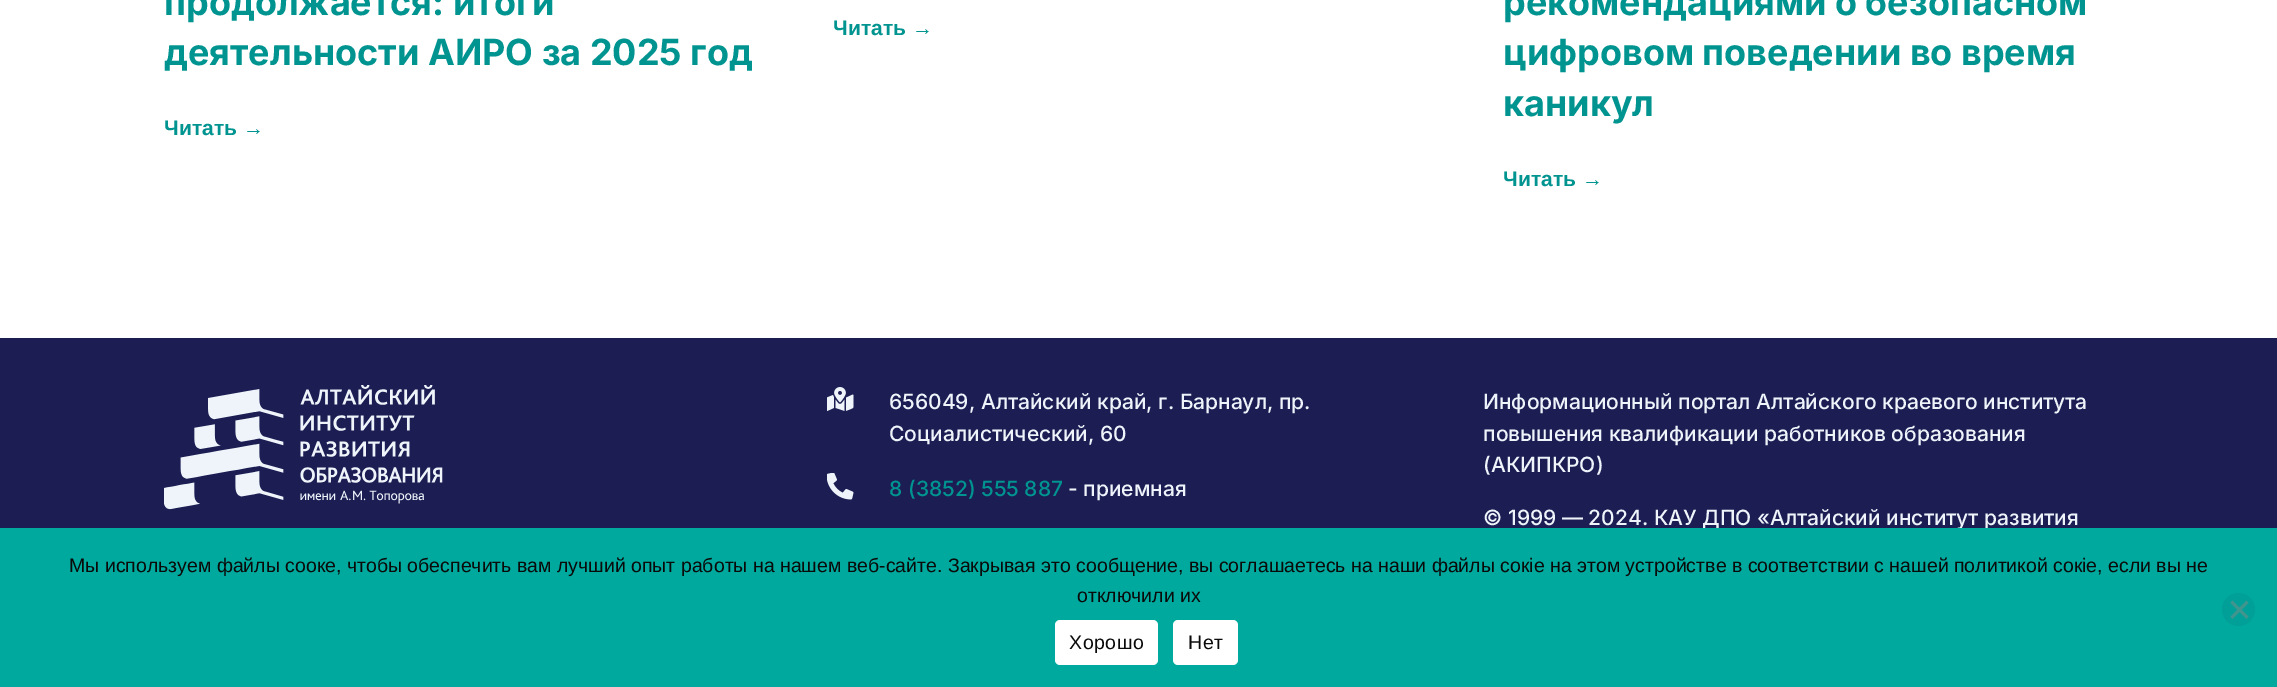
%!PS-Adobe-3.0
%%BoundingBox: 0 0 2277 687
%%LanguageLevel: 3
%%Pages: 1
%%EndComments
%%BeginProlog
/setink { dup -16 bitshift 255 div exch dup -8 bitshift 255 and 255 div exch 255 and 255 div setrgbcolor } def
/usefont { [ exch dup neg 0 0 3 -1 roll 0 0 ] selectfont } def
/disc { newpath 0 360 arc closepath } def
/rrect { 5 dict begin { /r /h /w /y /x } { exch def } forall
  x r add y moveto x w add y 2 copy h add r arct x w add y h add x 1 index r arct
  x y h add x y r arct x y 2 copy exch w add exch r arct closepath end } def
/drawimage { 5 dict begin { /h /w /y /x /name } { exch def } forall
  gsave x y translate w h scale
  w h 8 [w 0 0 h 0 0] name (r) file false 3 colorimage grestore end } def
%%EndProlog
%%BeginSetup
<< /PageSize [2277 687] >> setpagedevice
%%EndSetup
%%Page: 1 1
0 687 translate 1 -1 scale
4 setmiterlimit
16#FFFFFF setink
0 0 2277 687 rectfill
/Inter-Bold 36 usefont
16#009490 setink
164 15 moveto (продолжается: итоги) show
164 65 moveto (деятельности АИРО за 2025 год) show
/LiberationSans-Bold 21 usefont
164 135 moveto (Читать →) show
833 35 moveto (Читать →) show
/Inter-Bold 36 usefont
[
    [(рекомендациями о безопасном) 1503 15]
    [(цифровом поведении во время) 1503 65]
    [(каникул) 1503 116]
] { aload pop moveto show } forall
/LiberationSans-Bold 21 usefont
1503 186 moveto (Читать →) show
16#1C1E53 setink
0 338 2277 190 rectfill
(img1.raw) 164 385 279 125 drawimage
(img2.raw) 827 387 27 24 drawimage
/Inter-Medium 21 usefont
16#EEF4FA setink
889 409 moveto (656049, Алтайский край, г. Барнаул, пр.) show
889 441 moveto (Социалистический, 60) show
(img3.raw) 827 473 27 27 drawimage
16#009490 setink
889 496 moveto (8 \(3852\) 555 887) show
16#EEF4FA setink
[
    [(- приемная) 1068 496]
    [(Информационный портал Алтайского краевого института) 1483 409]
    [(повышения квалификации работников образования) 1483 441]
    [(\(АКИПКРО\)) 1483 472]
    [(© 1999 — 2024. КАУ ДПО «Алтайский институт развития) 1483 525]
] { aload pop moveto show } forall
16#00A99D setink
0 528 2277 159 rectfill
/LiberationSans-Regular 19.5 usefont
16#0A0A0A setink
69 572 moveto (Мы используем файлы сооке, чтобы обеспечить вам лучший опыт работы на нашем веб-сайте. Закрывая это сообщение, вы соглашаетесь на наши файлы сокіе на этом устройстве в соответствии с нашей политикой сокіе, если вы не) show
1077 602 moveto (отключили их) show
16#009F97 setink
2238.5 609.5 16.5 disc fill
16#40958F setink
2246.5 600.5 moveto 2248.5 603 lineto 2232.5 619 lineto 2230.5 616.5 lineto closepath fill
2230.5 603 moveto 2232.5 600.5 lineto 2248.5 616.5 lineto 2246.5 619 lineto closepath fill
16#FFFFFF setink
1055 620 103 45 5 rrect fill
16#0A0A0A setink
1069 649 moveto 0.5 0 (Хорошо) ashow
16#FFFFFF setink
1173 620 65 45 5 rrect fill
16#0A0A0A setink
1188 649 moveto 0.5 0 (Нет) ashow
showpage
%%EOF
